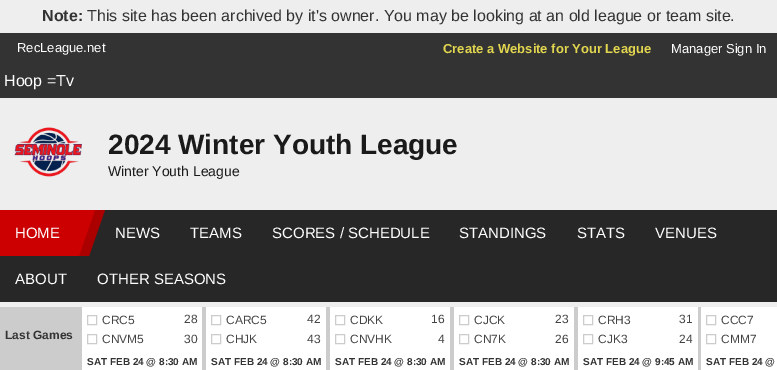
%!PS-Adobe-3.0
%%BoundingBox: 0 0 777 370
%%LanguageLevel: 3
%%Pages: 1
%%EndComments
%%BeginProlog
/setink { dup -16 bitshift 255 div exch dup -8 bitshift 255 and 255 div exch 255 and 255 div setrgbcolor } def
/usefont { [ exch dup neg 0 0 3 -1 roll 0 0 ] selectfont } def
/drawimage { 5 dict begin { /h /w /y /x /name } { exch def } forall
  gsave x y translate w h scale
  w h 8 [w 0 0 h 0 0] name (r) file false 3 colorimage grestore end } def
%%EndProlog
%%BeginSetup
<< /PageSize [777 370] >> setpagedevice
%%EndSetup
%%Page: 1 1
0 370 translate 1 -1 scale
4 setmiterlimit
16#EEEEEE setink
0 0 777 370 rectfill
/LiberationSans-Bold 16 usefont
16#333333 setink
42 21 moveto (Note:) show
/LiberationSans-Regular 16 usefont
87 21 moveto (This site has been archived by it's owner. You may be looking at an old league or team site.) show
0 33 777 65 rectfill
/LiberationSans-Regular 13 usefont
16#FFFFFF setink
17 52 moveto (RecLeague.net) show
/LiberationSans-Bold 13 usefont
16#E2D54F setink
443 53 moveto (Create a Website for Your League) show
/LiberationSans-Regular 13 usefont
16#FFFFFF setink
671 53 moveto (Manager Sign In) show
/LiberationSans-Regular 16 usefont
4 86 moveto (Hoop =Tv) show
(img1.raw) 14 127 68 50 drawimage
/LiberationSans-Bold 28 usefont
16#1A1A1A setink
108 154 moveto (2024 Winter Youth League) show
/LiberationSans-Regular 14 usefont
108 176 moveto (Winter Youth League) show
16#272727 setink
0 210 777 92 rectfill
16#AA0000 setink
30 210 moveto 105 210 lineto 89 256 lineto 14 256 lineto closepath fill
16#CC0000 setink
30 210 moveto 95 210 lineto 79 256 lineto 14 256 lineto closepath fill
0 210 30 46 rectfill
/LiberationSans-Regular 15 usefont
16#FFFFFF setink
[
    [(HOME) 15 238]
    [(NEWS) 115 238]
    [(TEAMS) 190 238]
    [(SCORES / SCHEDULE) 272 238]
    [(STANDINGS) 459 238]
    [(STATS) 577 238]
    [(VENUES) 655 238]
    [(ABOUT) 15 284]
    [(OTHER SEASONS) 97 284]
] { aload pop moveto show } forall
16#CCCCCC setink
0 307 701 63 rectfill
/LiberationSans-Bold 12 usefont
16#333333 setink
5 339 moveto (Last Games) show
16#FFFFFF setink
82 307 120 63 rectfill
16#CCCCCC setink
87.5 315.5 9 9 rectstroke
/LiberationSans-Regular 12 usefont
16#444444 setink
102 324 moveto (CRC5) show
184 323 moveto (28) show
16#CCCCCC setink
87.5 334.5 9 9 rectstroke
16#444444 setink
102 343 moveto (CNVM5) show
184 343 moveto (30) show
/LiberationSans-Bold 10 usefont
16#333333 setink
87 365 moveto (SAT FEB 24 @ 8:30 AM) show
16#FFFFFF setink
206 307 120 63 rectfill
16#CCCCCC setink
211.5 315.5 9 9 rectstroke
/LiberationSans-Regular 12 usefont
16#444444 setink
226 324 moveto (CARC5) show
307 323 moveto (42) show
16#CCCCCC setink
211.5 334.5 9 9 rectstroke
16#444444 setink
226 343 moveto (CHJK) show
307 343 moveto (43) show
/LiberationSans-Bold 10 usefont
16#333333 setink
211 365 moveto (SAT FEB 24 @ 8:30 AM) show
16#FFFFFF setink
330 307 120 63 rectfill
16#CCCCCC setink
335.5 315.5 9 9 rectstroke
/LiberationSans-Regular 12 usefont
16#444444 setink
350 324 moveto (CDKK) show
431 323 moveto (16) show
16#CCCCCC setink
335.5 334.5 9 9 rectstroke
16#444444 setink
350 343 moveto (CNVHK) show
438 343 moveto (4) show
/LiberationSans-Bold 10 usefont
16#333333 setink
335 365 moveto (SAT FEB 24 @ 8:30 AM) show
16#FFFFFF setink
454 307 120 63 rectfill
16#CCCCCC setink
459.5 315.5 9 9 rectstroke
/LiberationSans-Regular 12 usefont
16#444444 setink
474 324 moveto (CJCK) show
555 323 moveto (23) show
16#CCCCCC setink
459.5 334.5 9 9 rectstroke
16#444444 setink
474 343 moveto (CN7K) show
555 343 moveto (26) show
/LiberationSans-Bold 10 usefont
16#333333 setink
459 365 moveto (SAT FEB 24 @ 8:30 AM) show
16#FFFFFF setink
578 307 120 63 rectfill
16#CCCCCC setink
583.5 315.5 9 9 rectstroke
/LiberationSans-Regular 12 usefont
16#444444 setink
598 324 moveto (CRH3) show
679 323 moveto (31) show
16#CCCCCC setink
583.5 334.5 9 9 rectstroke
16#444444 setink
598 343 moveto (CJK3) show
679 343 moveto (24) show
/LiberationSans-Bold 10 usefont
16#333333 setink
583 365 moveto (SAT FEB 24 @ 9:45 AM) show
16#FFFFFF setink
701 307 76 63 rectfill
16#CCCCCC setink
706.5 315.5 9 9 rectstroke
/LiberationSans-Regular 12 usefont
16#444444 setink
721 324 moveto (CCC7) show
16#CCCCCC setink
706.5 334.5 9 9 rectstroke
16#444444 setink
721 343 moveto (CMM7) show
/LiberationSans-Bold 10 usefont
16#333333 setink
706 365 moveto (SAT FEB 24 @) show
showpage
%%EOF
